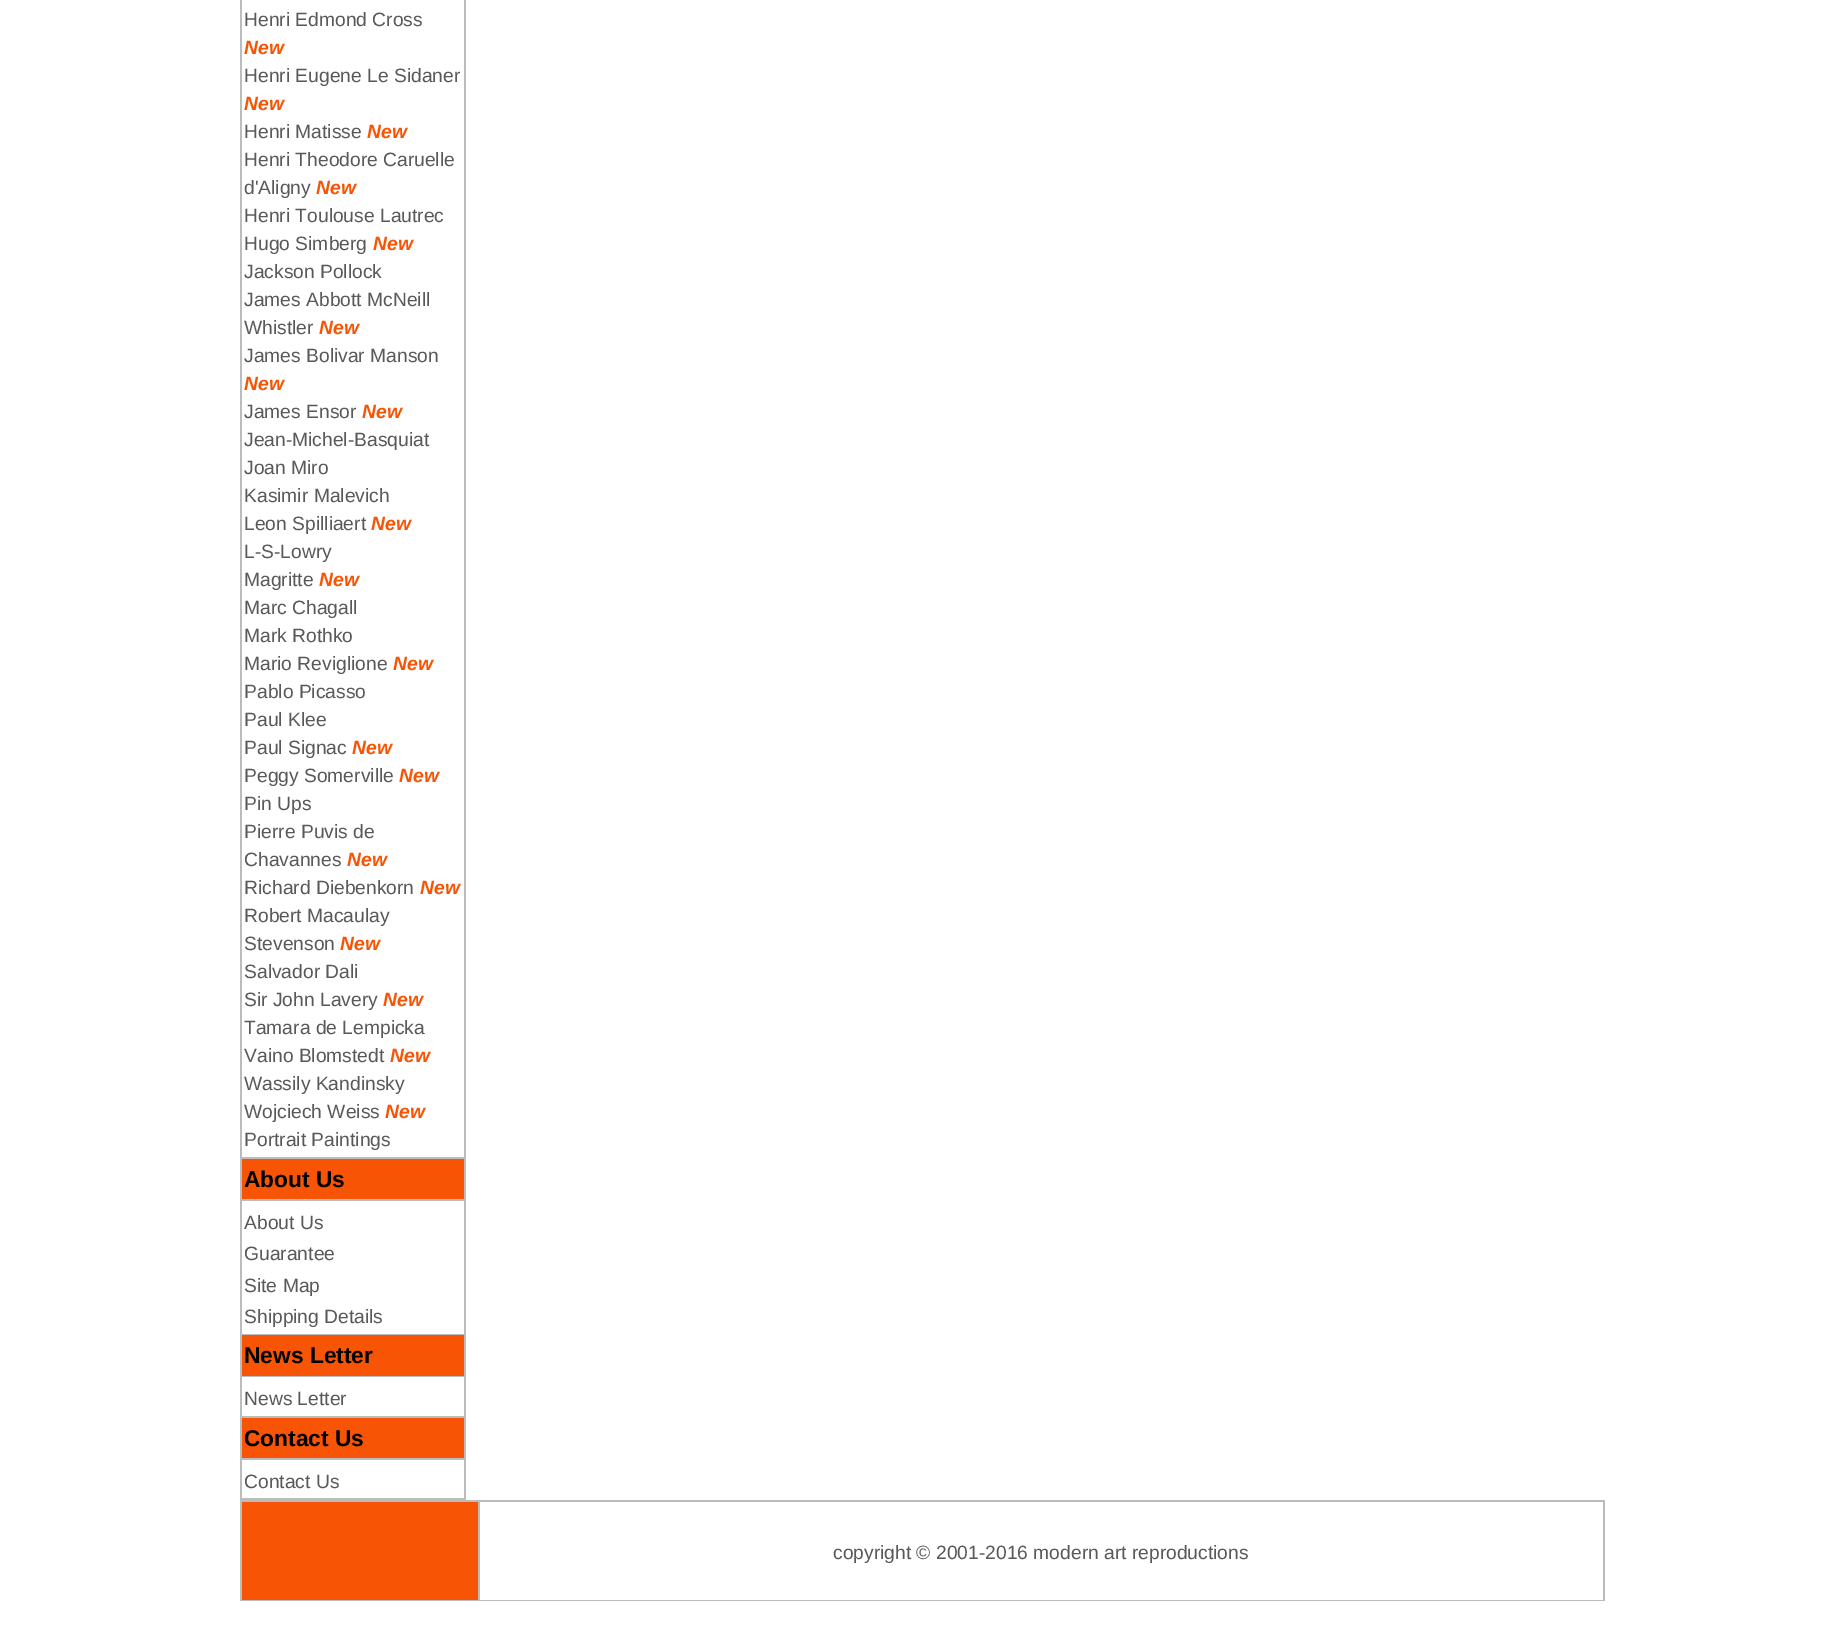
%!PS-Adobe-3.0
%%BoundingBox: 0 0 1842 1628
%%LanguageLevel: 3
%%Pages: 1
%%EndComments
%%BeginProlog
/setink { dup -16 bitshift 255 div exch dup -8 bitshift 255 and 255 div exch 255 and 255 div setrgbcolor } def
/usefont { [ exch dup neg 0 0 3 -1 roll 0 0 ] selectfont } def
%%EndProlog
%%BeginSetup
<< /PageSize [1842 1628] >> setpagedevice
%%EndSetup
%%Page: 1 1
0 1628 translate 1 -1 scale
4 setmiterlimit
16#FFFFFF setink
0 0 1842 1628 rectfill
16#BBBCBC setink
240 0 226 1500 rectfill
16#FFFFFF setink
242 0 222 1157 rectfill
/LiberationSans-Regular 19.25 usefont
16#595959 setink
244 26 moveto (Henri Edmond Cross) show
/LiberationSans-BoldItalic 19.25 usefont
16#F75505 setink
244 54 moveto (New) show
/LiberationSans-Regular 19.25 usefont
16#595959 setink
244 82 moveto (Henri Eugene Le Sidaner) show
/LiberationSans-BoldItalic 19.25 usefont
16#F75505 setink
244 110 moveto (New) show
/LiberationSans-Regular 19.25 usefont
16#595959 setink
244 138 moveto (Henri Matisse) show
/LiberationSans-BoldItalic 19.25 usefont
16#F75505 setink
367 138 moveto (New) show
/LiberationSans-Regular 19.25 usefont
16#595959 setink
244 166 moveto (Henri Theodore Caruelle) show
244 194 moveto (d'Aligny) show
/LiberationSans-BoldItalic 19.25 usefont
16#F75505 setink
316 194 moveto (New) show
/LiberationSans-Regular 19.25 usefont
16#595959 setink
244 222 moveto (Henri Toulouse Lautrec) show
244 250 moveto (Hugo Simberg) show
/LiberationSans-BoldItalic 19.25 usefont
16#F75505 setink
373 250 moveto (New) show
/LiberationSans-Regular 19.25 usefont
16#595959 setink
[
    [(Jackson Pollock) 244 278]
    [(James Abbott McNeill) 244 306]
    [(Whistler) 244 334]
] { aload pop moveto show } forall
/LiberationSans-BoldItalic 19.25 usefont
16#F75505 setink
319 334 moveto (New) show
/LiberationSans-Regular 19.25 usefont
16#595959 setink
244 362 moveto (James Bolivar Manson) show
/LiberationSans-BoldItalic 19.25 usefont
16#F75505 setink
244 390 moveto (New) show
/LiberationSans-Regular 19.25 usefont
16#595959 setink
244 418 moveto (James Ensor) show
/LiberationSans-BoldItalic 19.25 usefont
16#F75505 setink
362 418 moveto (New) show
/LiberationSans-Regular 19.25 usefont
16#595959 setink
[
    [(Jean-Michel-Basquiat) 244 446]
    [(Joan Miro) 244 474]
    [(Kasimir Malevich) 244 502]
    [(Leon Spilliaert) 244 530]
] { aload pop moveto show } forall
/LiberationSans-BoldItalic 19.25 usefont
16#F75505 setink
371 530 moveto (New) show
/LiberationSans-Regular 19.25 usefont
16#595959 setink
244 558 moveto (L-S-Lowry) show
244 586 moveto (Magritte) show
/LiberationSans-BoldItalic 19.25 usefont
16#F75505 setink
319 586 moveto (New) show
/LiberationSans-Regular 19.25 usefont
16#595959 setink
[
    [(Marc Chagall) 244 614]
    [(Mark Rothko) 244 642]
    [(Mario Reviglione) 244 670]
] { aload pop moveto show } forall
/LiberationSans-BoldItalic 19.25 usefont
16#F75505 setink
393 670 moveto (New) show
/LiberationSans-Regular 19.25 usefont
16#595959 setink
[
    [(Pablo Picasso) 244 698]
    [(Paul Klee) 244 726]
    [(Paul Signac) 244 754]
] { aload pop moveto show } forall
/LiberationSans-BoldItalic 19.25 usefont
16#F75505 setink
352 754 moveto (New) show
/LiberationSans-Regular 19.25 usefont
16#595959 setink
244 782 moveto (Peggy Somerville) show
/LiberationSans-BoldItalic 19.25 usefont
16#F75505 setink
399 782 moveto (New) show
/LiberationSans-Regular 19.25 usefont
16#595959 setink
[
    [(Pin Ups) 244 810]
    [(Pierre Puvis de) 244 838]
    [(Chavannes) 244 866]
] { aload pop moveto show } forall
/LiberationSans-BoldItalic 19.25 usefont
16#F75505 setink
347 866 moveto (New) show
/LiberationSans-Regular 19.25 usefont
16#595959 setink
244 894 moveto (Richard Diebenkorn) show
/LiberationSans-BoldItalic 19.25 usefont
16#F75505 setink
420 894 moveto (New) show
/LiberationSans-Regular 19.25 usefont
16#595959 setink
244 922 moveto (Robert Macaulay) show
244 950 moveto (Stevenson) show
/LiberationSans-BoldItalic 19.25 usefont
16#F75505 setink
340 950 moveto (New) show
/LiberationSans-Regular 19.25 usefont
16#595959 setink
244 978 moveto (Salvador Dali) show
244 1006 moveto (Sir John Lavery) show
/LiberationSans-BoldItalic 19.25 usefont
16#F75505 setink
383 1006 moveto (New) show
/LiberationSans-Regular 19.25 usefont
16#595959 setink
244 1034 moveto (Tamara de Lempicka) show
244 1062 moveto (Vaino Blomstedt) show
/LiberationSans-BoldItalic 19.25 usefont
16#F75505 setink
390 1062 moveto (New) show
/LiberationSans-Regular 19.25 usefont
16#595959 setink
244 1090 moveto (Wassily Kandinsky) show
244 1118 moveto (Wojciech Weiss) show
/LiberationSans-BoldItalic 19.25 usefont
16#F75505 setink
385 1118 moveto (New) show
/LiberationSans-Regular 19.25 usefont
16#595959 setink
244 1146 moveto (Portrait Paintings) show
16#F75505 setink
242 1159 222 40 rectfill
/LiberationSans-Bold 22.75 usefont
16#000000 setink
244 1187 moveto (About Us) show
16#FFFFFF setink
242 1201 222 133 rectfill
/LiberationSans-Regular 19.25 usefont
16#595959 setink
[
    [(About Us) 244 1229]
    [(Guarantee) 244 1260]
    [(Site Map) 244 1292]
    [(Shipping Details) 244 1323]
] { aload pop moveto show } forall
16#F75505 setink
242 1335 222 41 rectfill
/LiberationSans-Bold 22.75 usefont
16#000000 setink
244 1363 moveto (News Letter) show
16#FFFFFF setink
242 1377 222 39 rectfill
/LiberationSans-Regular 19.25 usefont
16#595959 setink
244 1405 moveto (News Letter) show
16#F75505 setink
242 1418 222 40 rectfill
/LiberationSans-Bold 22.75 usefont
16#000000 setink
244 1446 moveto (Contact Us) show
16#FFFFFF setink
242 1460 222 38 rectfill
/LiberationSans-Regular 19.25 usefont
16#595959 setink
244 1488 moveto (Contact Us) show
[
    [240 1500 1365 101 16#BBBCBC]
    [242 1502 236 98 16#F75505]
    [480 1502 1123 98 16#FFFFFF]
] { aload pop setink rectfill } forall
16#595959 setink
833 1559 moveto (copyright © 2001-2016 modern art reproductions) show
showpage
%%EOF
